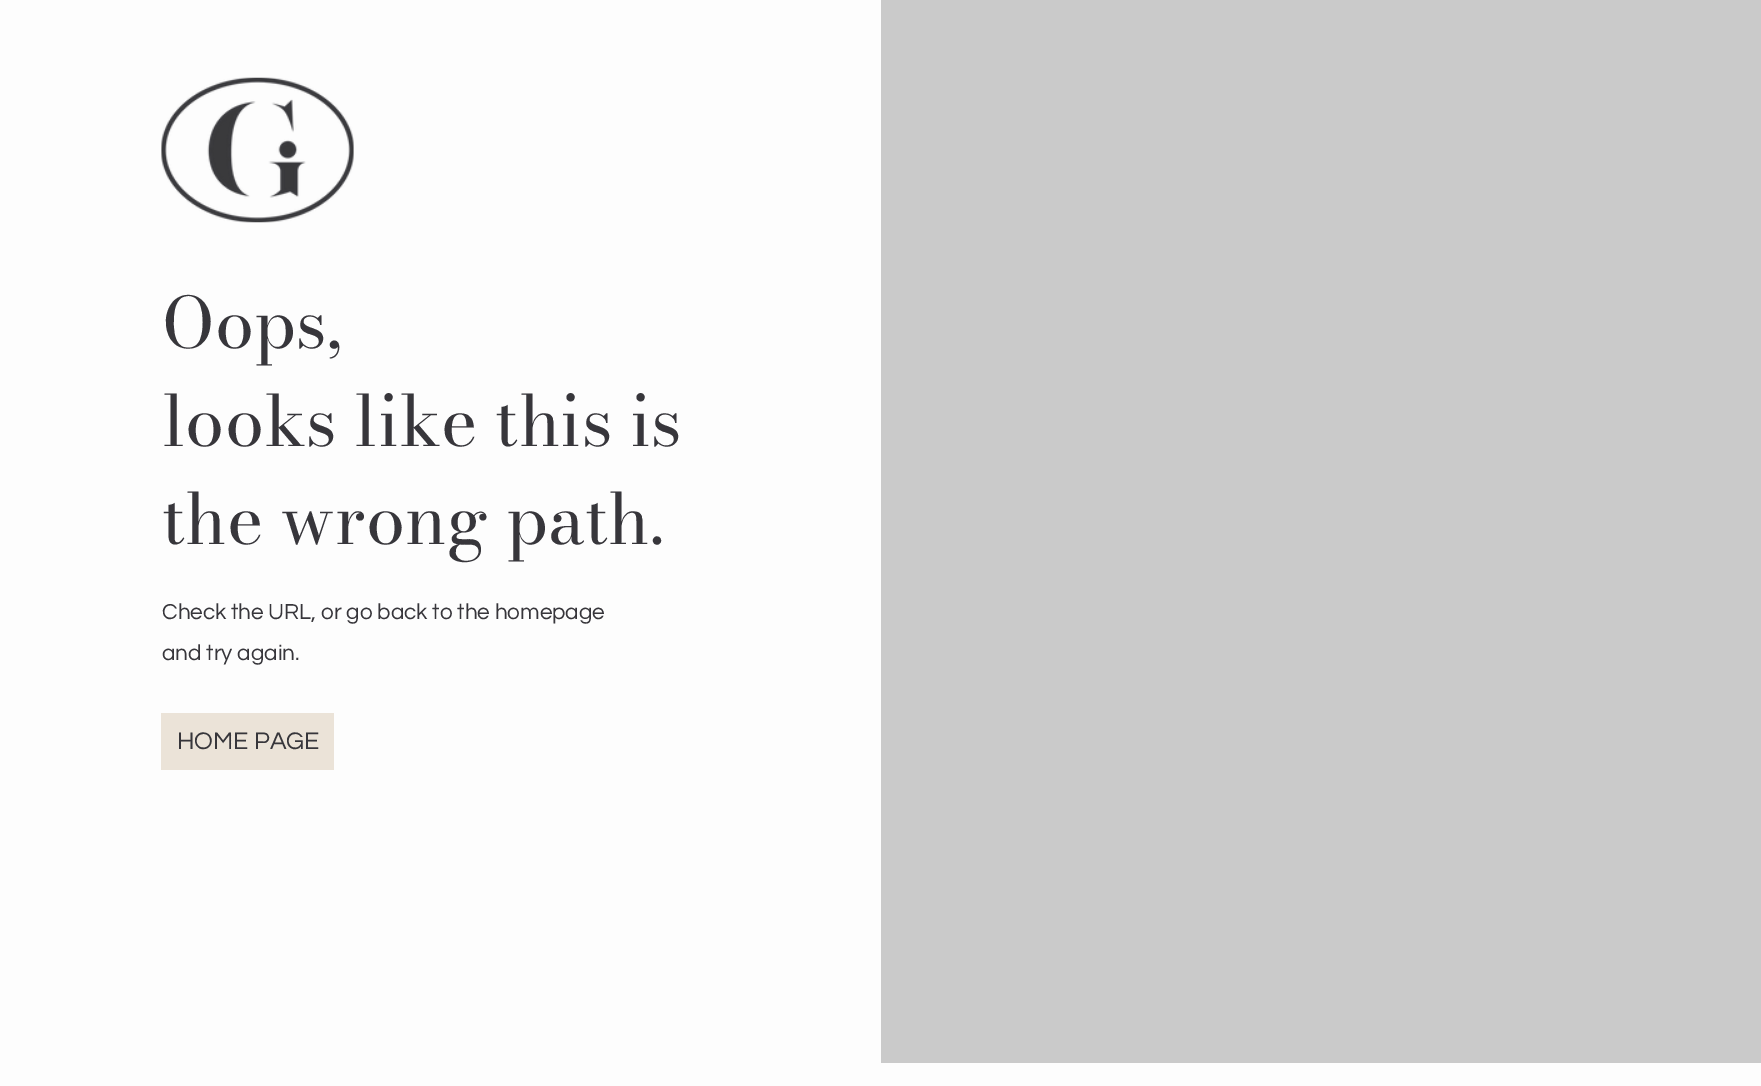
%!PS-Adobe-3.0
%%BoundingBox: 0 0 1761 1086
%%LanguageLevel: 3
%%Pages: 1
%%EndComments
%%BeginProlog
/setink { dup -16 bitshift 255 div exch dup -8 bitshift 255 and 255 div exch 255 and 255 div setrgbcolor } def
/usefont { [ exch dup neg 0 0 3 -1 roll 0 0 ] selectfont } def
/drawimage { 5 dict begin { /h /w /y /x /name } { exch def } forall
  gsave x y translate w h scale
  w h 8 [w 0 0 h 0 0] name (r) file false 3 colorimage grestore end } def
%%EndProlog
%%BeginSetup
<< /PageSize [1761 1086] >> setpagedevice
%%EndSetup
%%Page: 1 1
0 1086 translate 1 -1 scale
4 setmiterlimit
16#FDFDFD setink
0 0 1761 1086 rectfill
(img1.raw) 161 77 193 146 drawimage
/BodoniModa-Regular 70 usefont
16#37363B setink
[
    [(Oops,) 162 348]
    [(looks like this is) 162 446]
    [(the wrong path.) 162 544]
] { aload pop moveto show } forall
/Questrial-Regular 22.5 usefont
162 619 moveto (Check the URL, or go back to the homepage) show
162 660 moveto (and try again.) show
16#EBE3D8 setink
161 713 173 57 rectfill
/Questrial-Regular 25 usefont
16#37363B setink
177 749 moveto (HOME PAGE) show
16#CACACA setink
881 0 880 1063 rectfill
showpage
%%EOF
